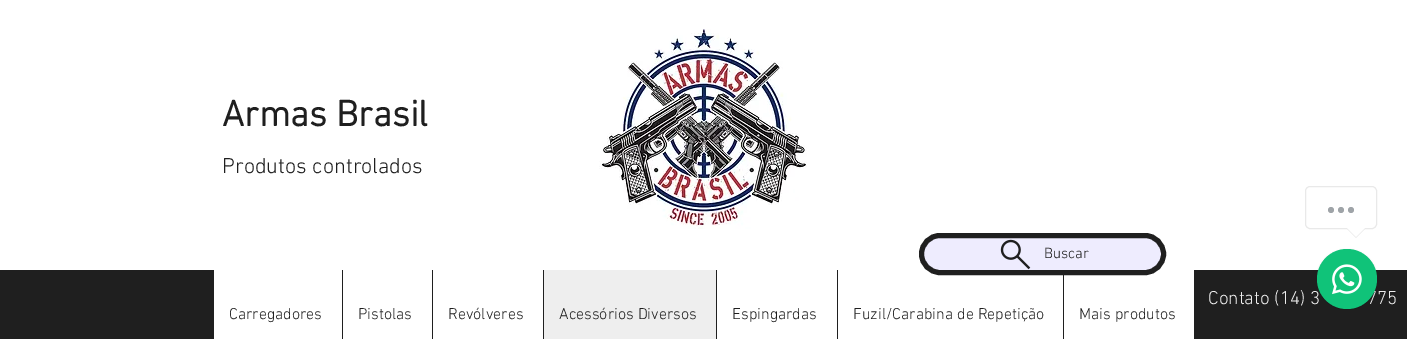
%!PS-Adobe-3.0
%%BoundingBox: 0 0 1407 339
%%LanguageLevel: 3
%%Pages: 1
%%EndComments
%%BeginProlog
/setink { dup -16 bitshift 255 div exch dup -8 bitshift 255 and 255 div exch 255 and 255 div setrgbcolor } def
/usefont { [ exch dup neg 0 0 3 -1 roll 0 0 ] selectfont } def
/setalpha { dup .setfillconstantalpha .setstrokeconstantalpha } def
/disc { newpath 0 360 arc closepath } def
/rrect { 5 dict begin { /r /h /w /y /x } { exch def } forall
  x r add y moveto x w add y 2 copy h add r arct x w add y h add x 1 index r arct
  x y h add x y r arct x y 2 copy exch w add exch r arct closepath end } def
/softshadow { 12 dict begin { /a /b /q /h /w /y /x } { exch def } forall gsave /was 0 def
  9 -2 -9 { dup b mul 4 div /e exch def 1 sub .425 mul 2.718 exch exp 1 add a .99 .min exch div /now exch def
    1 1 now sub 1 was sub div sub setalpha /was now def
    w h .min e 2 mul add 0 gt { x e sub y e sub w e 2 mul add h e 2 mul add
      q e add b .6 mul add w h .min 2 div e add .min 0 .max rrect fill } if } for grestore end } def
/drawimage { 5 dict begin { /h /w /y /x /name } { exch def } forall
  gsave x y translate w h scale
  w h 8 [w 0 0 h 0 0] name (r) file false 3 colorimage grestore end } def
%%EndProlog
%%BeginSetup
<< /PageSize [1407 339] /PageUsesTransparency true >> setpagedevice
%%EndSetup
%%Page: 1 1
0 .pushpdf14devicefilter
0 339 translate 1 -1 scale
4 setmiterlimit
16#FFFFFF setink
0 0 1407 339 rectfill
/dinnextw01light-Bold 37 usefont
16#1F1F1F setink
222 126 moveto (Armas Brasil) show
(img1.raw) 599 29 208 200 drawimage
/dinnextw01light-Light 22 usefont
222 173 moveto (Produtos controlados) show
[
    [0 270 1407 69 16#1F1F1F]
    [214 270 980 69 16#FFFFFF]
    [1063 270 1 69 16#1F1F1F]
] { aload pop setink rectfill } forall
16#EEECFE setink
921.5 235.5 242 37 18.5 rrect gsave fill grestore
16#1F1F1F setink
5 setlinewidth
stroke
(img2.raw) 1000 239 31 31 drawimage
/dinnextw01light-Light 15 usefont
1044 258 moveto (Buscar) show
/dinnextw01light-Light 19 usefont
16#EEEEEE setink
1208 304 moveto (Contato \(14\) 3) show
1367 304 moveto (775) show
/dinnextw01light-Light 16 usefont
16#1F1F1F setink
229 319 moveto (Carregadores) show
342 270 1 69 rectfill
358 319 moveto (Pistolas) show
432 270 1 69 rectfill
448 319 moveto (Revólveres) show
16#EEEEEE setink
544 270 172 69 rectfill
16#1F1F1F setink
543 270 1 69 rectfill
559 319 moveto (Acessórios Diversos) show
716 270 1 69 rectfill
732 319 moveto (Espingardas) show
837 270 1 69 rectfill
853 319 moveto (Fuzil/Carabina de Repetição) show
1079 319 moveto (Mais produtos) show
16#E9E9E9 setink
1 setlinewidth
1305.5 186.5 71 42 4.5 rrect stroke
16#9FA4A8 setink
1331 210 3 disc fill
1341 210 3 disc fill
1351 210 3 disc fill
16#E9E9E9 setink
1346 228 moveto 1366 228 lineto 1356 238 lineto closepath fill
16#FFFFFF setink
1347 228 moveto 1365 228 lineto 1356 237 lineto closepath fill
16#000000 setink
1317 250 60 60 30 1 0.15 softshadow
16#10C379 setink
1347 279 30 disc fill
(img3.raw) 1332 264 30 31 drawimage
.poppdf14devicefilter showpage
%%EOF
